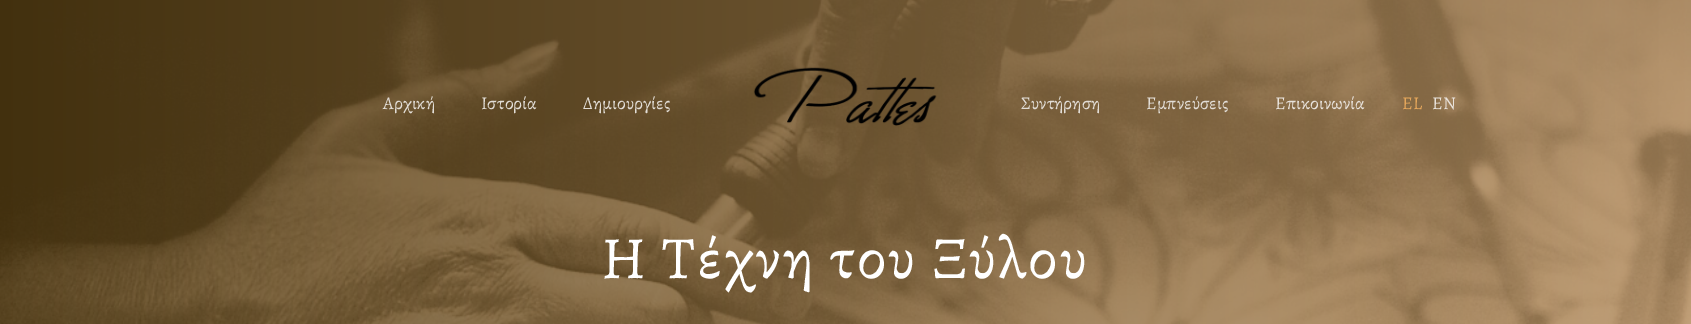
%!PS-Adobe-3.0
%%BoundingBox: 0 0 1691 324
%%LanguageLevel: 3
%%Pages: 1
%%EndComments
%%BeginProlog
/setink { dup -16 bitshift 255 div exch dup -8 bitshift 255 and 255 div exch 255 and 255 div setrgbcolor } def
/usefont { [ exch dup neg 0 0 3 -1 roll 0 0 ] selectfont } def
/drawimage { 5 dict begin { /h /w /y /x /name } { exch def } forall
  gsave x y translate w h scale
  w h 8 [w 0 0 h 0 0] name (r) file false 3 colorimage grestore end } def
%%EndProlog
%%BeginSetup
<< /PageSize [1691 324] >> setpagedevice
%%EndSetup
%%Page: 1 1
0 324 translate 1 -1 scale
4 setmiterlimit
16#FFFFFF setink
0 0 1691 324 rectfill
(img2.raw) 0 0 1691 324 drawimage
/Alegreya-Regular 18 usefont
16#E2DDD6 setink
[
    [(Αρχική) 383 109]
    [(Ιστορία) 481 109]
    [(Δημιουργίες) 583 109]
] { aload pop moveto show } forall
(img1.raw) 753 67 184 59 drawimage
1021 109 moveto (Συντήρηση) show
1146 109 moveto (Εμπνεύσεις) show
16#E8E2DB setink
1275 109 moveto (Επικοινωνία) show
16#E4A65B setink
1402 109 moveto (EL) show
16#E8E2DB setink
1432 109 moveto (EN) show
/Alegreya-Regular 60 usefont
16#FFFFFF setink
601 278 moveto 2 0 (Η Τέχνη του Ξύλου) ashow
showpage
%%EOF
